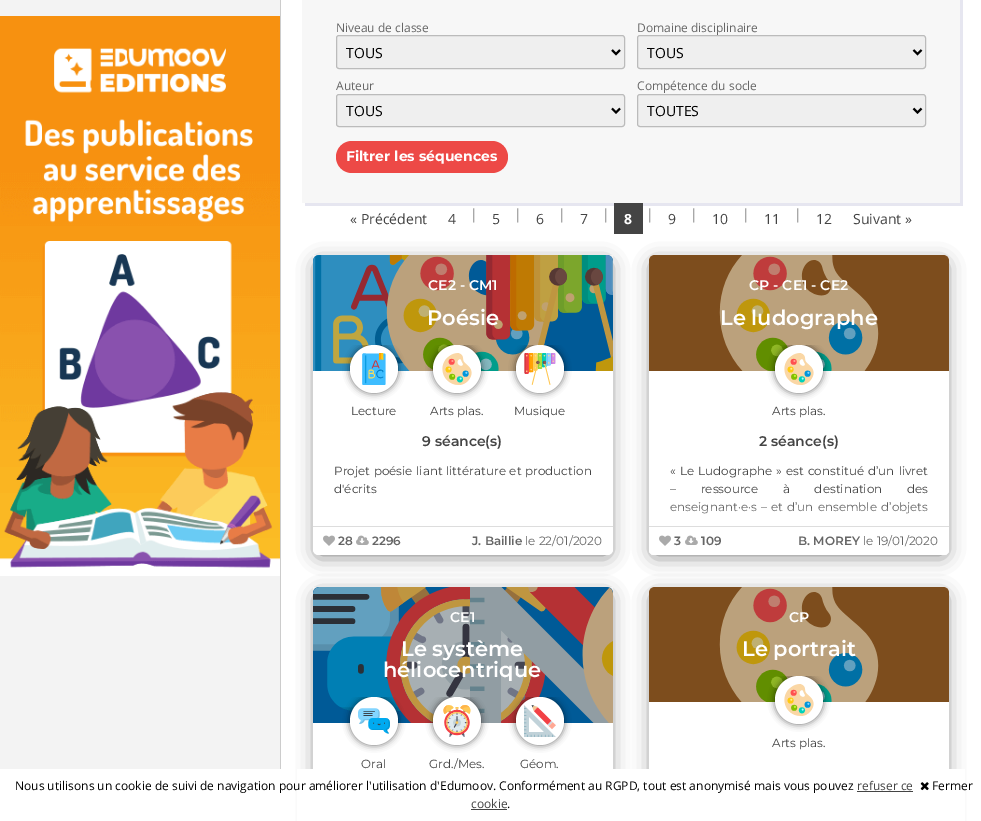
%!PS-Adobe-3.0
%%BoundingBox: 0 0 981 821
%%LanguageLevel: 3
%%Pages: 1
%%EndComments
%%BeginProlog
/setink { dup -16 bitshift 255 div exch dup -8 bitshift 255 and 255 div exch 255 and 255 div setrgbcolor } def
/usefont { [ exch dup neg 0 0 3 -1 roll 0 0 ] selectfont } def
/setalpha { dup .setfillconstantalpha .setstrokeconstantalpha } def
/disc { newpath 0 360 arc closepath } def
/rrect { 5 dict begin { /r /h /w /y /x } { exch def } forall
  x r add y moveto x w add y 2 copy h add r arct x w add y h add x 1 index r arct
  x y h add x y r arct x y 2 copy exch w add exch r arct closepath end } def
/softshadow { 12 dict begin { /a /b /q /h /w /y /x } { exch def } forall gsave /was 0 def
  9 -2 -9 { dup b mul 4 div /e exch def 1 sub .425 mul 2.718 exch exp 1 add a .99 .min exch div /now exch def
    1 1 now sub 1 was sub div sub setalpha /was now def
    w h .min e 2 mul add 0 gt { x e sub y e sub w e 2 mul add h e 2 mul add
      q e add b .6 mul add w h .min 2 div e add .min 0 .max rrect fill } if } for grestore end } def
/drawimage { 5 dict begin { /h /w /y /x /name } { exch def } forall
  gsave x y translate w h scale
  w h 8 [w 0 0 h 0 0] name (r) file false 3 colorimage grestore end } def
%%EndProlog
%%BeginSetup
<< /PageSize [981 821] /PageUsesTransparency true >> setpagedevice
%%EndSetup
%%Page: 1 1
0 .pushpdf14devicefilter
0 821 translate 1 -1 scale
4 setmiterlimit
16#FFFFFF setink
0 0 981 821 rectfill
16#F3F3F3 setink
0 0 280 769 rectfill
(img1.raw) 0 16 280 560 drawimage
16#CCCCCC setink
280 0 1 769 rectfill
16#E6E6F0 setink
305 203 moveto 305 206 lineto 963 206 lineto 963 -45 lineto 960 -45 lineto 960 203 lineto closepath fill
16#F7F7F7 setink
302 0 658 203 rectfill
/OpenSans-Regular 12 usefont
16#666666 setink
336 32 moveto (Niveau de classe) show
16#EFEFEF setink
336.5 35.5 288 33 2.5 rrect gsave fill grestore
16#BBBBBB setink
stroke
16#000000 setink
2 setlinewidth
612 50 moveto 616 54 lineto 620 50 lineto stroke
/OpenSans-Regular 14 usefont
346 58 moveto (TOUS) show
/OpenSans-Regular 12 usefont
16#666666 setink
637 32 moveto (Domaine disciplinaire) show
16#EFEFEF setink
637.5 35.5 288 33 2.5 rrect gsave fill grestore
16#BBBBBB setink
1 setlinewidth
stroke
16#000000 setink
2 setlinewidth
913.5 50 moveto 917.5 54 lineto 921.5 50 lineto stroke
/OpenSans-Regular 14 usefont
647 58 moveto (TOUS) show
/OpenSans-Regular 12 usefont
16#666666 setink
336 90 moveto (Auteur) show
16#EFEFEF setink
336.5 94.5 288 32 2.5 rrect gsave fill grestore
16#BBBBBB setink
1 setlinewidth
stroke
16#000000 setink
2 setlinewidth
612 108.5 moveto 616 112.5 lineto 620 108.5 lineto stroke
/OpenSans-Regular 14 usefont
346 116 moveto (TOUS) show
/OpenSans-Regular 12 usefont
16#666666 setink
637 90 moveto (Compétence du socle) show
16#EFEFEF setink
637.5 94.5 288 32 2.5 rrect gsave fill grestore
16#BBBBBB setink
1 setlinewidth
stroke
16#000000 setink
2 setlinewidth
913.5 108.5 moveto 917.5 112.5 lineto 921.5 108.5 lineto stroke
/OpenSans-Regular 14 usefont
647 116 moveto (TOUTES) show
16#ED4946 setink
336 141 172 32 16 rrect fill
/Montserrat-Bold 14 usefont
16#FFFFFF setink
346 161 moveto (Filtrer les séquences) show
/OpenSans-Regular 14 usefont
16#444444 setink
350 224 moveto (« Précédent) show
448 224 moveto (4) show
16#888888 setink
470 219 moveto (|) show
16#444444 setink
492 224 moveto (5) show
16#888888 setink
514 219 moveto (|) show
16#444444 setink
536 224 moveto (6) show
16#888888 setink
558 219 moveto (|) show
16#444444 setink
580 224 moveto (7) show
16#888888 setink
602 219 moveto (|) show
16#444444 setink
614 203 29 31 rectfill
/OpenSans-Bold 14 usefont
16#FFFFFF setink
624 224 moveto (8) show
/OpenSans-Regular 14 usefont
16#888888 setink
646 219 moveto (|) show
16#444444 setink
668 224 moveto (9) show
16#888888 setink
690 219 moveto (|) show
16#444444 setink
712 224 moveto (10) show
16#888888 setink
742 219 moveto (|) show
16#444444 setink
764 224 moveto (11) show
16#888888 setink
794 219 moveto (|) show
16#444444 setink
816 224 moveto (12) show
853 224 moveto (Suivant ») show
16#000000 setink
318 264 290 290 1 10 0.6 softshadow
16#FFFFFF setink
313 255 300 300 6 rrect fill
16#0078CA setink
319 255 moveto 607 255 lineto 610.5 255 613 257.5 613 261 curveto 613 371 lineto 313 371 lineto 313 261 lineto 313 257.5 315.5 255 319 255 curveto closepath fill
(img2.raw) 313 255 97 116 drawimage
(img3.raw) 386 255 159 116 drawimage
(img4.raw) 486 255 127 103 drawimage
(img5.raw) 595 356 18 15 drawimage
0.25 setalpha
16#000000 setink
319 255 moveto 607 255 lineto 610.5 255 613 257.5 613 261 curveto 613 371 lineto 313 371 lineto 313 261 lineto 313 257.5 315.5 255 319 255 curveto closepath fill
/Montserrat-SemiBold 14 usefont
1 setalpha
16#FFFFFF setink
428 290 moveto (CE2 - CM1) show
/Montserrat-SemiBold 21 usefont
427 325 moveto (Poésie) show
gsave
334 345 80 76 rectclip
16#000000 setink
350 345 48 48 24 3.5 0.6 softshadow
grestore
374 369 24 disc fill
(img6.raw) 362 353 24 32 drawimage
/Montserrat-Regular 11.9 usefont
16#444444 setink
351 415 moveto (Lecture) show
gsave
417 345 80 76 rectclip
16#000000 setink
433 345 48 48 24 3.5 0.6 softshadow
grestore
16#FFFFFF setink
457 369 24 disc fill
(img7.raw) 442 353 30 32 drawimage
16#444444 setink
430 415 moveto (Arts plas.) show
gsave
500 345 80 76 rectclip
16#000000 setink
516 345 48 48 24 3.5 0.6 softshadow
grestore
16#FFFFFF setink
540 369 24 disc fill
(img8.raw) 524 353 32 32 drawimage
16#444444 setink
514 415 moveto (Musique) show
/Montserrat-SemiBold 14 usefont
422 446 moveto (9 séance\(s\)) show
/Montserrat-Regular 11.9 usefont
334 475 moveto 0.5 0 32 (Projet poésie liant littérature et production) widthshow
334 493 moveto (d'écrits) show
16#FFFFFF setink
313 526 moveto 613 526 lineto 613 549 lineto 613 552.5 610.5 555 607 555 curveto 319 555 lineto 315.5 555 313 552.5 313 549 curveto closepath fill
16#DDDDDD setink
313 526 300 1 rectfill
(img9.raw) 323 535 12 11 drawimage
/Montserrat-SemiBold 12 usefont
16#666666 setink
338 545 moveto (28) show
(img10.raw) 356 535 13 10 drawimage
372 545 moveto (2296) show
472 545 moveto (J. Baillie) show
/Montserrat-Regular 12 usefont
525 545 moveto (le 22/01/2020) show
16#000000 setink
654 264 290 290 1 10 0.6 softshadow
16#FFFFFF setink
649 255 300 300 6 rrect fill
16#A76727 setink
655 255 moveto 943 255 lineto 946.5 255 949 257.5 949 261 curveto 949 371 lineto 649 371 lineto 649 261 lineto 649 257.5 651.5 255 655 255 curveto closepath fill
(img11.raw) 719 255 160 116 drawimage
0.25 setalpha
16#000000 setink
655 255 moveto 943 255 lineto 946.5 255 949 257.5 949 261 curveto 949 371 lineto 649 371 lineto 649 261 lineto 649 257.5 651.5 255 655 255 curveto closepath fill
/Montserrat-SemiBold 14 usefont
1 setalpha
16#FFFFFF setink
749 290 moveto (CP - CE1 - CE2) show
/Montserrat-SemiBold 21 usefont
720 325 moveto (Le ludographe) show
gsave
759 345 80 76 rectclip
16#000000 setink
775 345 48 48 24 3.5 0.6 softshadow
grestore
799 369 24 disc fill
(img7.raw) 784 353 30 32 drawimage
/Montserrat-Regular 11.9 usefont
16#444444 setink
772 415 moveto (Arts plas.) show
/Montserrat-SemiBold 14 usefont
759 446 moveto (2 séance\(s\)) show
/Montserrat-Regular 11.9 usefont
670 475 moveto 1 0 32 (« Le Ludographe » est constitué d’un livret) widthshow
670 493 moveto 21.5 0 32 (– ressource à destination des) widthshow
670 511 moveto 1 0 32 (enseignant·e·s – et d’un ensemble d’objets) widthshow
gsave
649 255 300 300 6 rrect clip newpath
16#FFFFFF setink
641 518 316 45 14 12.5 1 softshadow
grestore
16#FFFFFF setink
649 526 moveto 949 526 lineto 949 549 lineto 949 552.5 946.5 555 943 555 curveto 655 555 lineto 651.5 555 649 552.5 649 549 curveto closepath fill
16#DDDDDD setink
649 526 300 1 rectfill
(img9.raw) 659 535 12 11 drawimage
/Montserrat-SemiBold 12 usefont
16#666666 setink
674 545 moveto (3) show
(img10.raw) 685 535 13 10 drawimage
701 545 moveto (109) show
798 545 moveto (B. MOREY) show
/Montserrat-Regular 12 usefont
863 545 moveto (le 19/01/2020) show
16#000000 setink
318 596 290 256 1 10 0.6 softshadow
16#FFFFFF setink
313 587 300 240 6 rrect fill
16#0078CA setink
319 587 moveto 607 587 lineto 610.5 587 613 589.5 613 593 curveto 613 723 lineto 313 723 lineto 313 593 lineto 313 589.5 315.5 587 319 587 curveto closepath fill
(img12.raw) 313 587 121 136 drawimage
(img13.raw) 381 587 165 136 drawimage
(img14.raw) 470 587 139 136 drawimage
(img15.raw) 582 587 31 136 drawimage
0.25 setalpha
16#000000 setink
319 587 moveto 607 587 lineto 610.5 587 613 589.5 613 593 curveto 613 723 lineto 313 723 lineto 313 593 lineto 313 589.5 315.5 587 319 587 curveto closepath fill
/Montserrat-SemiBold 14 usefont
1 setalpha
16#FFFFFF setink
450 622 moveto (CE1) show
/Montserrat-SemiBold 21 usefont
401 656 moveto (Le système) show
383 677 moveto (héliocentrique) show
gsave
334 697 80 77 rectclip
16#000000 setink
350 697 48 48 24 3.5 0.6 softshadow
grestore
374 721 24 disc fill
(img16.raw) 358 708 32 26 drawimage
/Montserrat-Regular 11.9 usefont
16#444444 setink
361 768 moveto (Oral) show
gsave
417 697 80 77 rectclip
16#000000 setink
433 697 48 48 24 3.5 0.6 softshadow
grestore
16#FFFFFF setink
457 721 24 disc fill
(img17.raw) 443 705 28 32 drawimage
16#444444 setink
429 768 moveto (Grd./Mes.) show
gsave
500 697 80 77 rectclip
16#000000 setink
516 697 48 48 24 3.5 0.6 softshadow
grestore
16#FFFFFF setink
540 721 24 disc fill
(img18.raw) 524 705 32 32 drawimage
16#444444 setink
520 768 moveto (Géom.) show
16#000000 setink
654 596 290 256 1 10 0.6 softshadow
16#FFFFFF setink
649 587 300 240 6 rrect fill
16#A76727 setink
655 587 moveto 943 587 lineto 946.5 587 949 589.5 949 593 curveto 949 702 lineto 649 702 lineto 649 593 lineto 649 589.5 651.5 587 655 587 curveto closepath fill
(img19.raw) 719 587 160 115 drawimage
0.25 setalpha
16#000000 setink
655 587 moveto 943 587 lineto 946.5 587 949 589.5 949 593 curveto 949 702 lineto 649 702 lineto 649 593 lineto 649 589.5 651.5 587 655 587 curveto closepath fill
/Montserrat-SemiBold 14 usefont
1 setalpha
16#FFFFFF setink
789 622 moveto (CP) show
/Montserrat-SemiBold 21 usefont
742 656 moveto (Le portrait) show
gsave
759 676 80 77 rectclip
16#000000 setink
775 676 48 48 24 3.5 0.6 softshadow
grestore
799 700 24 disc fill
(img20.raw) 784 684 30 32 drawimage
/Montserrat-Regular 11.9 usefont
16#444444 setink
772 747 moveto (Arts plas.) show
16#FFFFFF setink
297 769 668 52 rectfill
/OpenSans-Regular 12 usefont
16#000000 setink
15 790 moveto (Nous utilisons un cookie de suivi de navigation pour améliorer l'utilisation d'Edumoov. Conformément au RGPD, tout est anonymisé mais vous pouvez) show
16#444444 setink
857 790 moveto (refuser ce) show
857 791 56 1 rectfill
(img21.raw) 920 782 9 9 drawimage
16#000000 setink
932 790 moveto (Fermer) show
16#444444 setink
471 808 moveto (cookie) show
471 809 36 1 rectfill
16#000000 setink
507 808 moveto (.) show
.poppdf14devicefilter showpage
%%EOF
